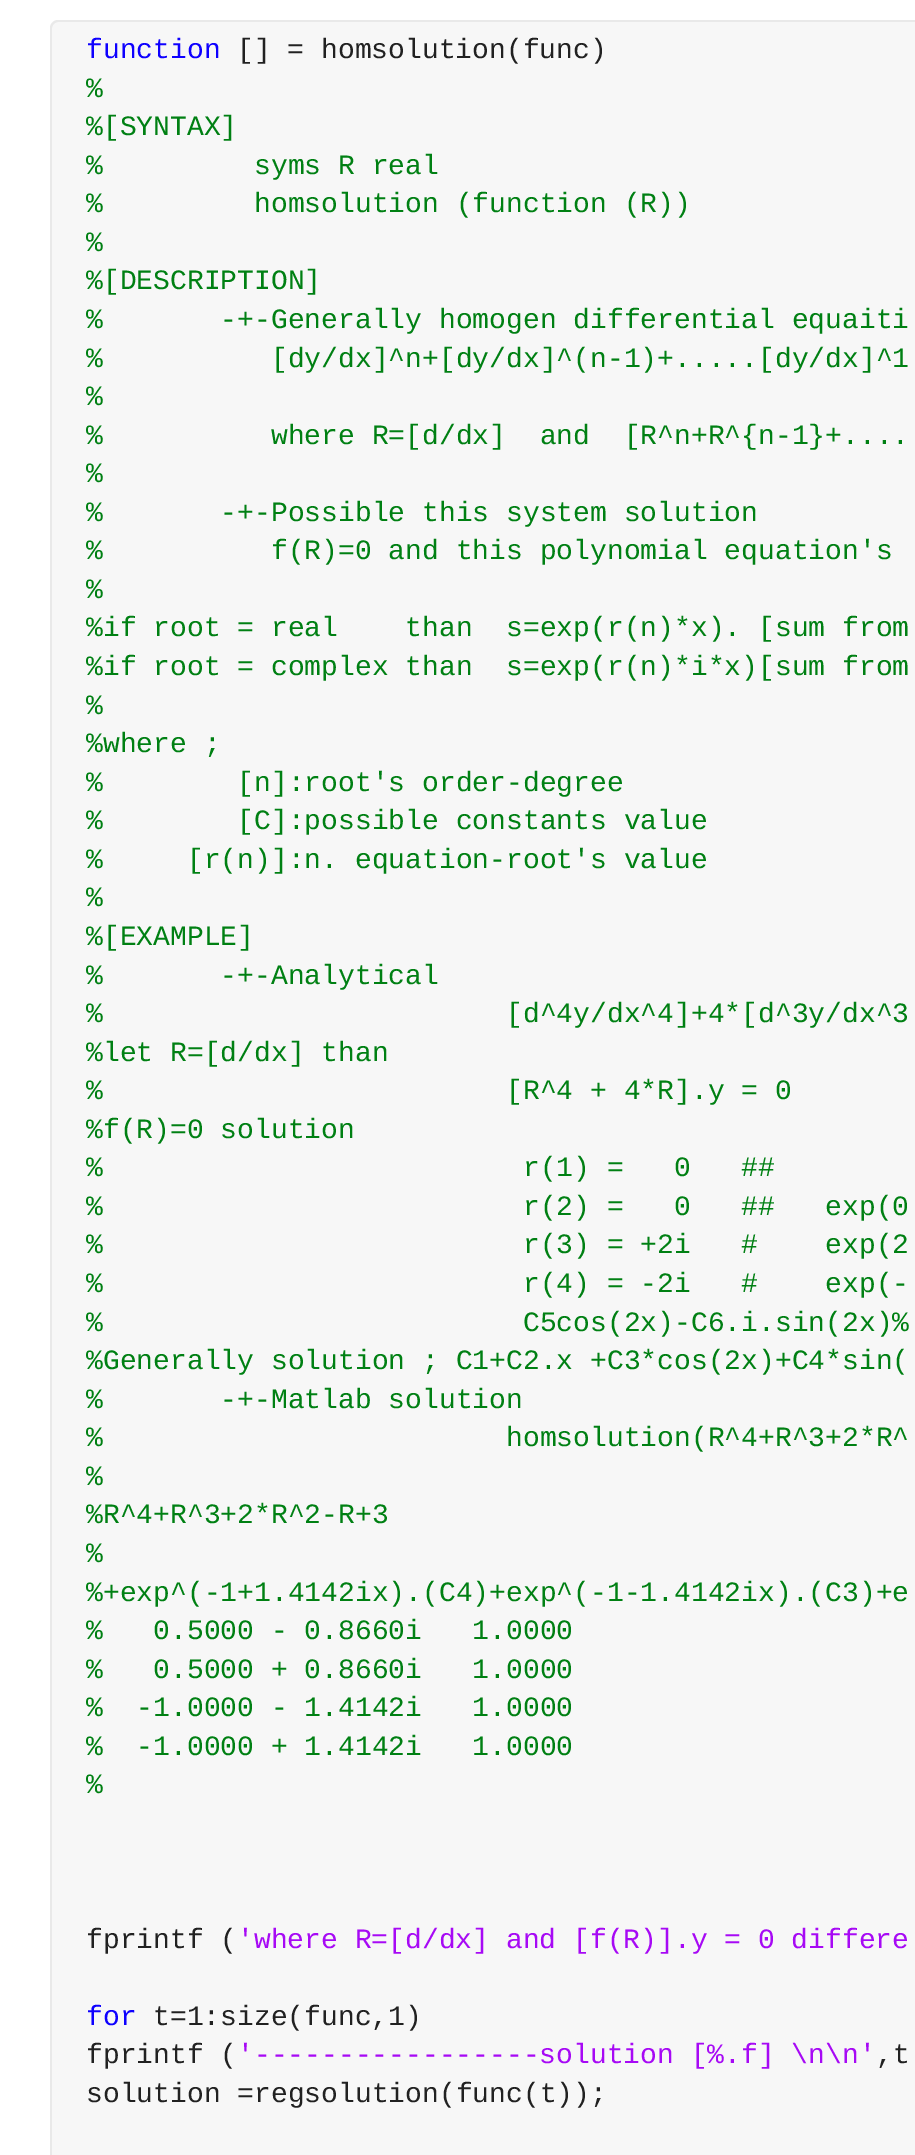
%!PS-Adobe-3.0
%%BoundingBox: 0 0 915 2155
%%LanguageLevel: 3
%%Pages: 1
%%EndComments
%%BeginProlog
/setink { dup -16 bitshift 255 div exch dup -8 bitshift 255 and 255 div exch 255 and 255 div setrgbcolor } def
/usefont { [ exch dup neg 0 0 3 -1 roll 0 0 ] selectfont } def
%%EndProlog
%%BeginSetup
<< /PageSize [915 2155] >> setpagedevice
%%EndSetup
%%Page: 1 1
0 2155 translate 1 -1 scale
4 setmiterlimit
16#FFFFFF setink
0 0 915 2155 rectfill
16#F7F7F7 setink
58 20 moveto 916 20 lineto 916 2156 lineto 50 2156 lineto 50 28 lineto 50 23.5 53.5 20 58 20 curveto closepath fill
16#E9E9E9 setink
58 20 moveto 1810 20 lineto 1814 20 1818 24 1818 28 curveto 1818 70 lineto 50 70 lineto 50 28 lineto 50 24 54 20 58 20 curveto closepath 58 22 moveto 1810 22 lineto 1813 22 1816 25 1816 28 curveto 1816 70 lineto 52 70 lineto 52 28 lineto 52 25 55 22 58 22 curveto closepath eofill
/LiberationMono-Regular 28 usefont
16#0E00FF setink
86 58 moveto (function) show
16#212121 setink
237 58 moveto ([] = homsolution\(func\)) show
16#E9E9E9 setink
50 70 2 2085 rectfill
16#008013 setink
[
    [(%) 86 97]
    [(%[SYNTAX]) 86 135]
    [(%         syms R real) 86 174]
    [(%         homsolution \(function \(R\)\)) 86 212]
    [(%) 86 251]
    [(%[DESCRIPTION]) 86 289]
    [(%       -+-Generally homogen differential equaiti) 86 328]
    [(%          [dy/dx]^n+[dy/dx]^\(n-1\)+.....[dy/dx]^1) 86 367]
    [(%) 86 405]
    [(%          where R=[d/dx]  and  [R^n+R^{n-1}+....) 86 444]
    [(%) 86 482]
    [(%       -+-Possible this system solution) 86 521]
    [(%          f\(R\)=0 and this polynomial equation's) 86 559]
    [(%) 86 598]
    [(%if root = real    than  s=exp\(r\(n\)*x\). [sum from) 86 636]
    [(%if root = complex than  s=exp\(r\(n\)*i*x\)[sum from) 86 675]
    [(%) 86 714]
    [(%where ;) 86 752]
    [(%        [n]:root's order-degree) 86 791]
    [(%        [C]:possible constants value) 86 829]
    [(%     [r\(n\)]:n. equation-root's value) 86 868]
    [(%) 86 906]
    [(%[EXAMPLE]) 86 945]
    [(%       -+-Analytical) 86 984]
    [(%                        [d^4y/dx^4]+4*[d^3y/dx^3) 86 1022]
    [(%let R=[d/dx] than) 86 1061]
    [(%                        [R^4 + 4*R].y = 0) 86 1099]
    [(%f\(R\)=0 solution) 86 1138]
    [(%                         r\(1\) =   0   ##) 86 1176]
    [(%                         r\(2\) =   0   ##   exp\(0) 86 1215]
    [(%                         r\(3\) = +2i   #    exp\(2) 86 1253]
    [(%                         r\(4\) = -2i   #    exp\(-) 86 1292]
    [(%                         C5cos\(2x\)-C6.i.sin\(2x\)%) 86 1331]
    [(%Generally solution ; C1+C2.x +C3*cos\(2x\)+C4*sin\() 86 1369]
    [(%       -+-Matlab solution) 86 1408]
    [(%                        homsolution\(R^4+R^3+2*R^) 86 1446]
    [(%) 86 1485]
    [(%R^4+R^3+2*R^2-R+3) 86 1523]
    [(%) 86 1562]
    [(%+exp^\(-1+1.4142ix\).\(C4\)+exp^\(-1-1.4142ix\).\(C3\)+e) 86 1601]
    [(%   0.5000 - 0.8660i   1.0000) 86 1639]
    [(%   0.5000 + 0.8660i   1.0000) 86 1678]
    [(%  -1.0000 - 1.4142i   1.0000) 86 1716]
    [(%  -1.0000 + 1.4142i   1.0000) 86 1755]
    [(%) 86 1793]
] { aload pop moveto show } forall
16#212121 setink
86 1948 moveto (fprintf \() show
16#A709F5 setink
237 1948 moveto ('where R=[d/dx] and [f\(R\)].y = 0 differe) show
16#0E00FF setink
86 2025 moveto (for) show
16#212121 setink
153 2025 moveto (t=1:size\(func,1\)) show
86 2063 moveto (fprintf \() show
16#A709F5 setink
237 2063 moveto ('-----------------solution [%.f] \\n\\n') show
16#212121 setink
876 2063 moveto (,t) show
86 2102 moveto (solution =regsolution\(func\(t\)\);) show
showpage
%%EOF
